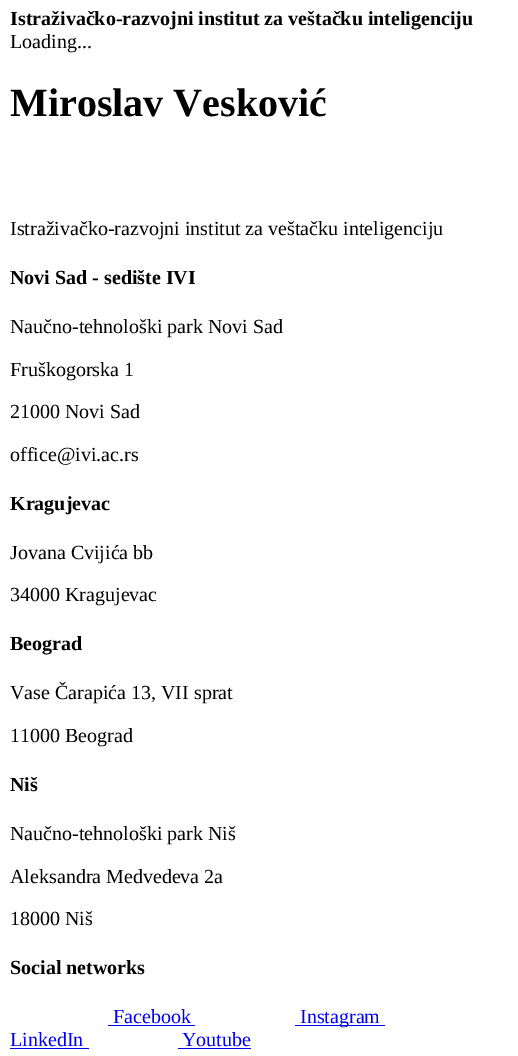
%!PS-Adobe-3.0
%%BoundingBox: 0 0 518 1056
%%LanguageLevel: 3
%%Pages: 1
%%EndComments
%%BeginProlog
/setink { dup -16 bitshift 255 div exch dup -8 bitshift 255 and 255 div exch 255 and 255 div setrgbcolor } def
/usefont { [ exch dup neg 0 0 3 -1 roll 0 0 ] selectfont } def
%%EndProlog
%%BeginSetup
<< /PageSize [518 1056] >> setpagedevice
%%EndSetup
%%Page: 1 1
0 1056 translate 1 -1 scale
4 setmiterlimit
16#FFFFFF setink
0 0 518 1056 rectfill
/LiberationSerif-Bold 20 usefont
16#000000 setink
10 25 moveto (Istraživačko-razvojni institut za veštačku inteligenciju) show
/LiberationSerif-Regular 20 usefont
10 48 moveto (Loading...) show
/LiberationSerif-Bold 40 usefont
10 116 moveto (Miroslav Vesković) show
/LiberationSerif-Regular 20 usefont
10 235 moveto (Istraživačko-razvojni institut za veštačku inteligenciju) show
/LiberationSerif-Bold 20 usefont
10 284 moveto (Novi Sad - sedište IVI) show
/LiberationSerif-Regular 20 usefont
[
    [(Naučno-tehnološki park Novi Sad) 10 333]
    [(Fruškogorska 1) 10 376]
    [(21000 Novi Sad) 10 418]
    [(office@ivi.ac.rs) 10 461]
] { aload pop moveto show } forall
/LiberationSerif-Bold 20 usefont
10 510 moveto (Kragujevac) show
/LiberationSerif-Regular 20 usefont
10 559 moveto (Jovana Cvijića bb) show
10 601 moveto (34000 Kragujevac) show
/LiberationSerif-Bold 20 usefont
10 650 moveto (Beograd) show
/LiberationSerif-Regular 20 usefont
10 699 moveto (Vase Čarapića 13, VII sprat) show
10 742 moveto (11000 Beograd) show
/LiberationSerif-Bold 20 usefont
10 791 moveto (Niš) show
/LiberationSerif-Regular 20 usefont
[
    [(Naučno-tehnološki park Niš) 10 840]
    [(Aleksandra Medvedeva 2a) 10 883]
    [(18000 Niš) 10 925]
] { aload pop moveto show } forall
/LiberationSerif-Bold 20 usefont
10 974 moveto (Social networks) show
/LiberationSerif-Regular 20 usefont
16#0000EE setink
113 1023 moveto (Facebook) show
108 1025 87 1 rectfill
295 1025 85 1 rectfill
300 1023 moveto (Instagram) show
380 1025 5 1 rectfill
10 1046 moveto (LinkedIn) show
10 1048 79 1 rectfill
182 1046 moveto (Youtube) show
178 1048 73 1 rectfill
showpage
%%EOF
